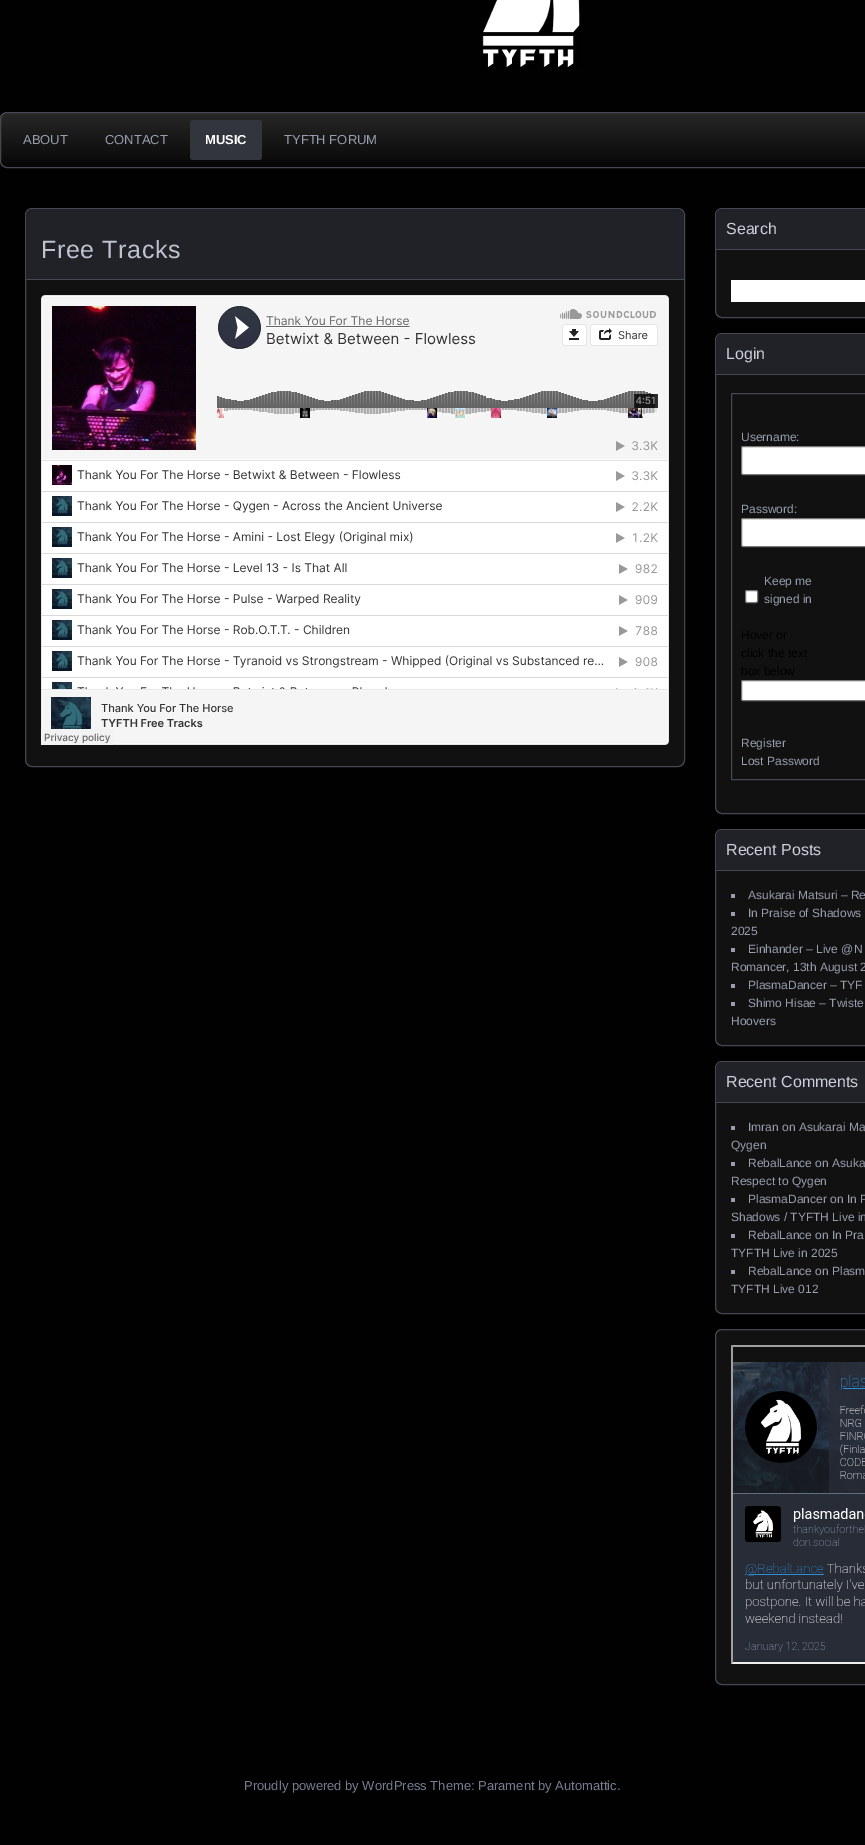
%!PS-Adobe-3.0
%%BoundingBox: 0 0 865 1845
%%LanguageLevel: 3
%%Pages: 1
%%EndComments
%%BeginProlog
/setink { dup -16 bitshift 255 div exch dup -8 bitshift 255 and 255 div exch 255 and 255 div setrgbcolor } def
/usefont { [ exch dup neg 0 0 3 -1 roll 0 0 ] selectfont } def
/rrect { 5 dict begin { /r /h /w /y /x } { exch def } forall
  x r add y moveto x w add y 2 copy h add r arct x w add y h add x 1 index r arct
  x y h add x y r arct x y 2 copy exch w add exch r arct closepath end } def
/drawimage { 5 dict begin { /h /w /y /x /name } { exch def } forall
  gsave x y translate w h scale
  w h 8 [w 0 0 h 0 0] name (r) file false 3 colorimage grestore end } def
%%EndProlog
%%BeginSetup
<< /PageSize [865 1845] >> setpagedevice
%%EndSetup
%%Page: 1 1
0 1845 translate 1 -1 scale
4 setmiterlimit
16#010101 setink
0 0 865 1845 rectfill
(img1.raw) 482 0 98 67 drawimage
gsave
0 112 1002 56 7 rrect clip newpath
gsave 0 113 moveto 865 113 lineto 865 167 lineto 0 167 lineto closepath clip newpath
<< /ShadingType 2 /ColorSpace /DeviceRGB /Coords [501 113 501 167] /Extend [true true] /Function << /FunctionType 3 /Domain [0 1] /Functions [<< /FunctionType 2 /Domain [0 1] /C0 [0.153 0.153 0.153] /C1 [0.153 0.153 0.153] /N 1 >> << /FunctionType 2 /Domain [0 1] /C0 [0.153 0.153 0.153] /C1 [0.027 0.027 0.027] /N 1 >>] /Bounds [0.01] /Encode [0 1 0 1] >> >> shfill grestore
grestore
16#444855 setink
0.5 112.5 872 55 6.5 rrect stroke
/LiberationSans-Regular 13 usefont
16#989EAE setink
23 144 moveto (ABOUT) show
105 144 moveto (CONTACT) show
16#33353D setink
190 120 72 40 3 rrect fill
/LiberationSans-Bold 13 usefont
16#FFFFFF setink
205 144 moveto (MUSIC) show
/LiberationSans-Regular 13 usefont
16#989EAE setink
284 144 moveto (TYFTH FORUM) show
16#111111 setink
25.5 208.5 659 558 6.5 rrect gsave fill grestore
16#444855 setink
stroke
16#202228 setink
33 209 moveto 677 209 lineto 681 209 684 212 684 216 curveto 684 280 lineto 26 280 lineto 26 216 lineto 26 212 29 209 33 209 curveto closepath fill
16#444855 setink
26 279 658 1 rectfill
/LiberationSans-Regular 25 usefont
16#BFC3CF setink
41 258 moveto 0.6 0 (Free Tracks) ashow
(img2.raw) 41 295 628 450 drawimage
16#111111 setink
715.5 208.5 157 109 6.5 rrect gsave fill grestore
16#444855 setink
stroke
16#202228 setink
722 209 moveto 865 209 lineto 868.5 209 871 211.5 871 215 curveto 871 250 lineto 716 250 lineto 716 215 lineto 716 211.5 718.5 209 722 209 curveto closepath fill
16#444855 setink
716 249 149 1 rectfill
/LiberationSans-Regular 16 usefont
16#CCCFD7 setink
726 234 moveto (Search) show
16#FFFFFF setink
731 280 134 22 rectfill
16#111111 setink
715.5 333.5 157 480 6.5 rrect gsave fill grestore
16#444855 setink
stroke
16#202228 setink
722 334 moveto 865 334 lineto 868.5 334 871 336.5 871 340 curveto 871 375 lineto 716 375 lineto 716 340 lineto 716 336.5 718.5 334 722 334 curveto closepath fill
16#444855 setink
716 374 149 1 rectfill
16#CCCFD7 setink
726 359 moveto (Login) show
16#444855 setink
731.5 393.5 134 386 rectstroke
/LiberationSans-Regular 12 usefont
16#989EAE setink
741 441 moveto (Username:) show
16#FFFFFF setink
741.5 446.5 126 28 1.5 rrect gsave fill grestore
16#767676 setink
stroke
16#989EAE setink
741 513 moveto (Password:) show
16#FFFFFF setink
741.5 518.5 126 28 1.5 rrect gsave fill grestore
16#767676 setink
stroke
16#FFFFFF setink
745.5 590.5 12 12 1.5 rrect gsave fill grestore
16#767676 setink
stroke
16#989EAE setink
764 585 moveto (Keep me) show
764 603 moveto (signed in) show
16#000000 setink
[
    [(Hover or) 741 639]
    [(click the text) 741 657]
    [(box below) 741 675]
] { aload pop moveto show } forall
16#FFFFFF setink
741.5 680.5 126 20 1.5 rrect gsave fill grestore
16#767676 setink
stroke
16#989EAE setink
741 747 moveto (Register) show
741 765 moveto (Lost Password) show
16#111111 setink
715.5 829.5 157 216 6.5 rrect gsave fill grestore
16#444855 setink
stroke
16#202228 setink
722 830 moveto 865 830 lineto 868.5 830 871 832.5 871 836 curveto 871 871 lineto 716 871 lineto 716 836 lineto 716 832.5 718.5 830 722 830 curveto closepath fill
16#444855 setink
716 870 149 1 rectfill
/LiberationSans-Regular 16 usefont
16#CCCFD7 setink
726 855 moveto (Recent Posts) show
16#989EAE setink
731 894 4 4 rectfill
/LiberationSans-Regular 12 usefont
748 899 moveto (Asukarai Matsuri – Re) show
731 912 4 4 rectfill
748 917 moveto (In Praise of Shadows) show
731 935 moveto (2025) show
731 948 4 4 rectfill
748 953 moveto (Einhander – Live @N) show
731 971 moveto (Romancer, 13th August 2) show
731 984 4 4 rectfill
748 989 moveto (PlasmaDancer – TYF) show
731 1002 4 4 rectfill
748 1007 moveto (Shimo Hisae – Twiste) show
731 1025 moveto (Hoovers) show
16#111111 setink
715.5 1061.5 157 252 6.5 rrect gsave fill grestore
16#444855 setink
stroke
16#202228 setink
722 1062 moveto 865 1062 lineto 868.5 1062 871 1064.5 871 1068 curveto 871 1103 lineto 716 1103 lineto 716 1068 lineto 716 1064.5 718.5 1062 722 1062 curveto closepath fill
16#444855 setink
716 1102 149 1 rectfill
/LiberationSans-Regular 16 usefont
16#CCCFD7 setink
726 1087 moveto (Recent Comments) show
16#989EAE setink
731 1126 4 4 rectfill
/LiberationSans-Regular 12 usefont
748 1131 moveto (Imran on Asukarai Ma) show
731 1149 moveto (Qygen) show
731 1162 4 4 rectfill
748 1167 moveto (RebalLance on Asuka) show
731 1185 moveto (Respect to Qygen) show
731 1198 4 4 rectfill
748 1203 moveto (PlasmaDancer on In P) show
731 1221 moveto (Shadows / TYFTH Live in) show
731 1234 4 4 rectfill
748 1239 moveto (RebalLance on In Pra) show
731 1257 moveto (TYFTH Live in 2025) show
731 1270 4 4 rectfill
748 1275 moveto (RebalLance on Plasm) show
731 1293 moveto (TYFTH Live 012) show
16#111111 setink
715.5 1329.5 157 355 6.5 rrect gsave fill grestore
16#444855 setink
stroke
16#9F9F9F setink
731 1345 moveto 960 1345 lineto 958 1347 lineto 733 1347 lineto closepath fill
16#EEEEEE setink
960 1664 moveto 731 1664 lineto 733 1662 lineto 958 1662 lineto closepath fill
16#9F9F9F setink
731 1664 moveto 731 1345 lineto 733 1347 lineto 733 1662 lineto closepath fill
(img3.raw) 733 1362 132 300 drawimage
/LiberationSans-Regular 13 usefont
16#777D92 setink
244 1790 moveto (Proudly powered by WordPress Theme: Parament by Automattic.) show
showpage
%%EOF
